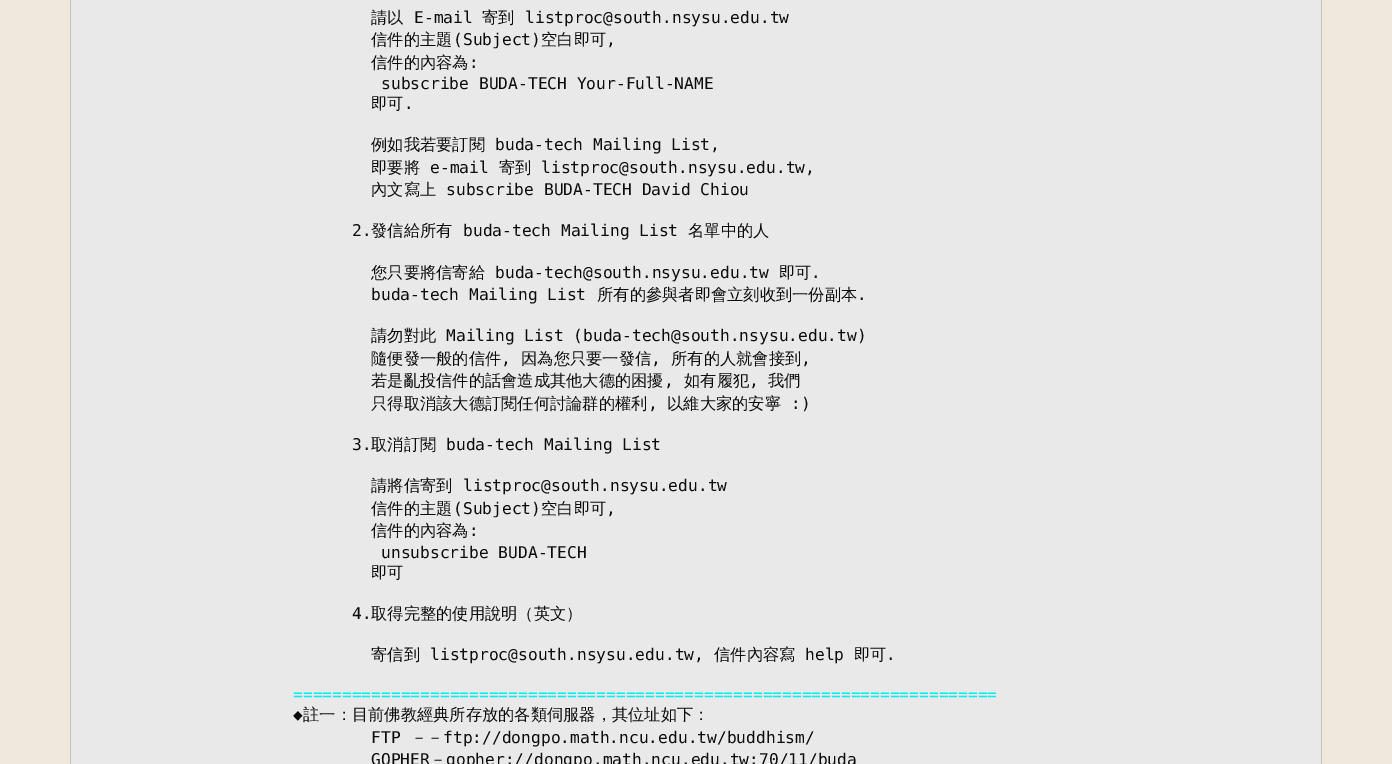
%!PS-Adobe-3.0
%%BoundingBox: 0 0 1392 764
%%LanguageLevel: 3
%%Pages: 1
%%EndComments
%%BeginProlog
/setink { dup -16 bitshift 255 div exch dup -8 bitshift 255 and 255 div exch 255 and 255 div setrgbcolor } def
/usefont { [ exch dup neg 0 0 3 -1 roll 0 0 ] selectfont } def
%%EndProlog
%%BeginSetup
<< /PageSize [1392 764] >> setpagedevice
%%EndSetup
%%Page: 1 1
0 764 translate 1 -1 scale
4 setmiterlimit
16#F0E8DD setink
0 0 1392 764 rectfill
[
    [1321 0 1 764 16#C0C0C0]
    [70 0 1 764 16#C0C0C0]
    [71 0 1250 764 16#E9E9E9]
] { aload pop setink rectfill } forall
/WenQuanYiZenHei-Medium 16.25 usefont
16#0C0C0C setink
371 23 moveto (請以) show
/DejaVuSansMono-Regular 16.25 usefont
414 23 moveto (E-mail) show
/WenQuanYiZenHei-Medium 16.25 usefont
482 23 moveto (寄到) show
/DejaVuSansMono-Regular 16.25 usefont
525 23 moveto (listproc@south.nsysu.edu.tw) show
/WenQuanYiZenHei-Medium 16.25 usefont
371 45 moveto (信件的主題) show
/DejaVuSansMono-Regular 16.25 usefont
453 45 moveto (\(Subject\)) show
/WenQuanYiZenHei-Medium 16.25 usefont
541 45 moveto (空白即可) show
/DejaVuSansMono-Regular 16.25 usefont
606 45 moveto (,) show
/WenQuanYiZenHei-Medium 16.25 usefont
371 68 moveto (信件的內容為) show
/DejaVuSansMono-Regular 16.25 usefont
469 68 moveto (:) show
381 89 moveto (subscribe BUDA-TECH Your-Full-NAME) show
/WenQuanYiZenHei-Medium 16.25 usefont
371 109 moveto (即可) show
/DejaVuSansMono-Regular 16.25 usefont
404 109 moveto (.) show
/WenQuanYiZenHei-Medium 16.25 usefont
371 150 moveto (例如我若要訂閱) show
/DejaVuSansMono-Regular 16.25 usefont
495 150 moveto (buda-tech Mailing List,) show
/WenQuanYiZenHei-Medium 16.25 usefont
371 173 moveto (即要將) show
/DejaVuSansMono-Regular 16.25 usefont
430 173 moveto (e-mail) show
/WenQuanYiZenHei-Medium 16.25 usefont
499 173 moveto (寄到) show
/DejaVuSansMono-Regular 16.25 usefont
541 173 moveto (listproc@south.nsysu.edu.tw,) show
/WenQuanYiZenHei-Medium 16.25 usefont
371 195 moveto (內文寫上) show
/DejaVuSansMono-Regular 16.25 usefont
446 195 moveto (subscribe BUDA-TECH David Chiou) show
352 236 moveto (2.) show
/WenQuanYiZenHei-Medium 16.25 usefont
371 236 moveto (發信給所有) show
/DejaVuSansMono-Regular 16.25 usefont
463 236 moveto (buda-tech Mailing List) show
/WenQuanYiZenHei-Medium 16.25 usefont
688 236 moveto (名單中的人) show
371 278 moveto (您只要將信寄給) show
/DejaVuSansMono-Regular 16.25 usefont
495 278 moveto (buda-tech@south.nsysu.edu.tw) show
/WenQuanYiZenHei-Medium 16.25 usefont
779 278 moveto (即可) show
/DejaVuSansMono-Regular 16.25 usefont
811 278 moveto (.) show
371 300 moveto (buda-tech Mailing List) show
/WenQuanYiZenHei-Medium 16.25 usefont
597 300 moveto (所有的參與者即會立刻收到一份副本) show
/DejaVuSansMono-Regular 16.25 usefont
857 300 moveto (.) show
/WenQuanYiZenHei-Medium 16.25 usefont
371 341 moveto (請勿對此) show
/DejaVuSansMono-Regular 16.25 usefont
446 341 moveto (Mailing List \(buda-tech@south.nsysu.edu.tw\)) show
/WenQuanYiZenHei-Medium 16.25 usefont
371 364 moveto (隨便發一般的信件) show
/DejaVuSansMono-Regular 16.25 usefont
501 364 moveto (,) show
/WenQuanYiZenHei-Medium 16.25 usefont
521 364 moveto (因為您只要一發信) show
/DejaVuSansMono-Regular 16.25 usefont
651 364 moveto (,) show
/WenQuanYiZenHei-Medium 16.25 usefont
671 364 moveto (所有的人就會接到) show
/DejaVuSansMono-Regular 16.25 usefont
801 364 moveto (,) show
/WenQuanYiZenHei-Medium 16.25 usefont
371 386 moveto (若是亂投信件的話會造成其他大德的困擾) show
/DejaVuSansMono-Regular 16.25 usefont
664 386 moveto (,) show
/WenQuanYiZenHei-Medium 16.25 usefont
684 386 moveto (如有履犯) show
/DejaVuSansMono-Regular 16.25 usefont
749 386 moveto (,) show
/WenQuanYiZenHei-Medium 16.25 usefont
768 386 moveto (我們) show
371 409 moveto (只得取消該大德訂閱任何討論群的權利) show
/DejaVuSansMono-Regular 16.25 usefont
648 409 moveto (,) show
/WenQuanYiZenHei-Medium 16.25 usefont
667 409 moveto (以維大家的安寧) show
/DejaVuSansMono-Regular 16.25 usefont
791 409 moveto (:\)) show
352 450 moveto (3.) show
/WenQuanYiZenHei-Medium 16.25 usefont
371 450 moveto (取消訂閱) show
/DejaVuSansMono-Regular 16.25 usefont
446 450 moveto (buda-tech Mailing List) show
/WenQuanYiZenHei-Medium 16.25 usefont
371 491 moveto (請將信寄到) show
/DejaVuSansMono-Regular 16.25 usefont
463 491 moveto (listproc@south.nsysu.edu.tw) show
/WenQuanYiZenHei-Medium 16.25 usefont
371 514 moveto (信件的主題) show
/DejaVuSansMono-Regular 16.25 usefont
453 514 moveto (\(Subject\)) show
/WenQuanYiZenHei-Medium 16.25 usefont
541 514 moveto (空白即可) show
/DejaVuSansMono-Regular 16.25 usefont
606 514 moveto (,) show
/WenQuanYiZenHei-Medium 16.25 usefont
371 536 moveto (信件的內容為) show
/DejaVuSansMono-Regular 16.25 usefont
469 536 moveto (:) show
381 558 moveto (unsubscribe BUDA-TECH) show
/WenQuanYiZenHei-Medium 16.25 usefont
371 578 moveto (即可) show
/DejaVuSansMono-Regular 16.25 usefont
352 619 moveto (4.) show
/WenQuanYiZenHei-Medium 16.25 usefont
371 619 moveto (取得完整的使用說明（英文）) show
371 660 moveto (寄信到) show
/DejaVuSansMono-Regular 16.25 usefont
430 660 moveto (listproc@south.nsysu.edu.tw,) show
/WenQuanYiZenHei-Medium 16.25 usefont
714 660 moveto (信件內容寫) show
/DejaVuSansMono-Regular 16.25 usefont
805 660 moveto (help) show
/WenQuanYiZenHei-Medium 16.25 usefont
854 660 moveto (即可) show
/DejaVuSansMono-Regular 16.25 usefont
886 660 moveto (.) show
16#00F0F0 setink
293 700 moveto (========================================================================) show
16#0C0C0C setink
293 720 moveto (◆) show
/WenQuanYiZenHei-Medium 16.25 usefont
303 720 moveto (註一：目前佛教經典所存放的各類伺服器，其位址如下：) show
/DejaVuSansMono-Regular 16.25 usefont
371 743 moveto (FTP) show
/WenQuanYiZenHei-Medium 16.25 usefont
411 743 moveto (－－) show
/DejaVuSansMono-Regular 16.25 usefont
443 743 moveto (ftp://dongpo.math.ncu.edu.tw/buddhism/) show
371 765 moveto (GOPHER) show
/WenQuanYiZenHei-Medium 16.25 usefont
430 765 moveto (－) show
/DejaVuSansMono-Regular 16.25 usefont
446 765 moveto (gopher://dongpo.math.ncu.edu.tw:70/11/buda) show
showpage
%%EOF
